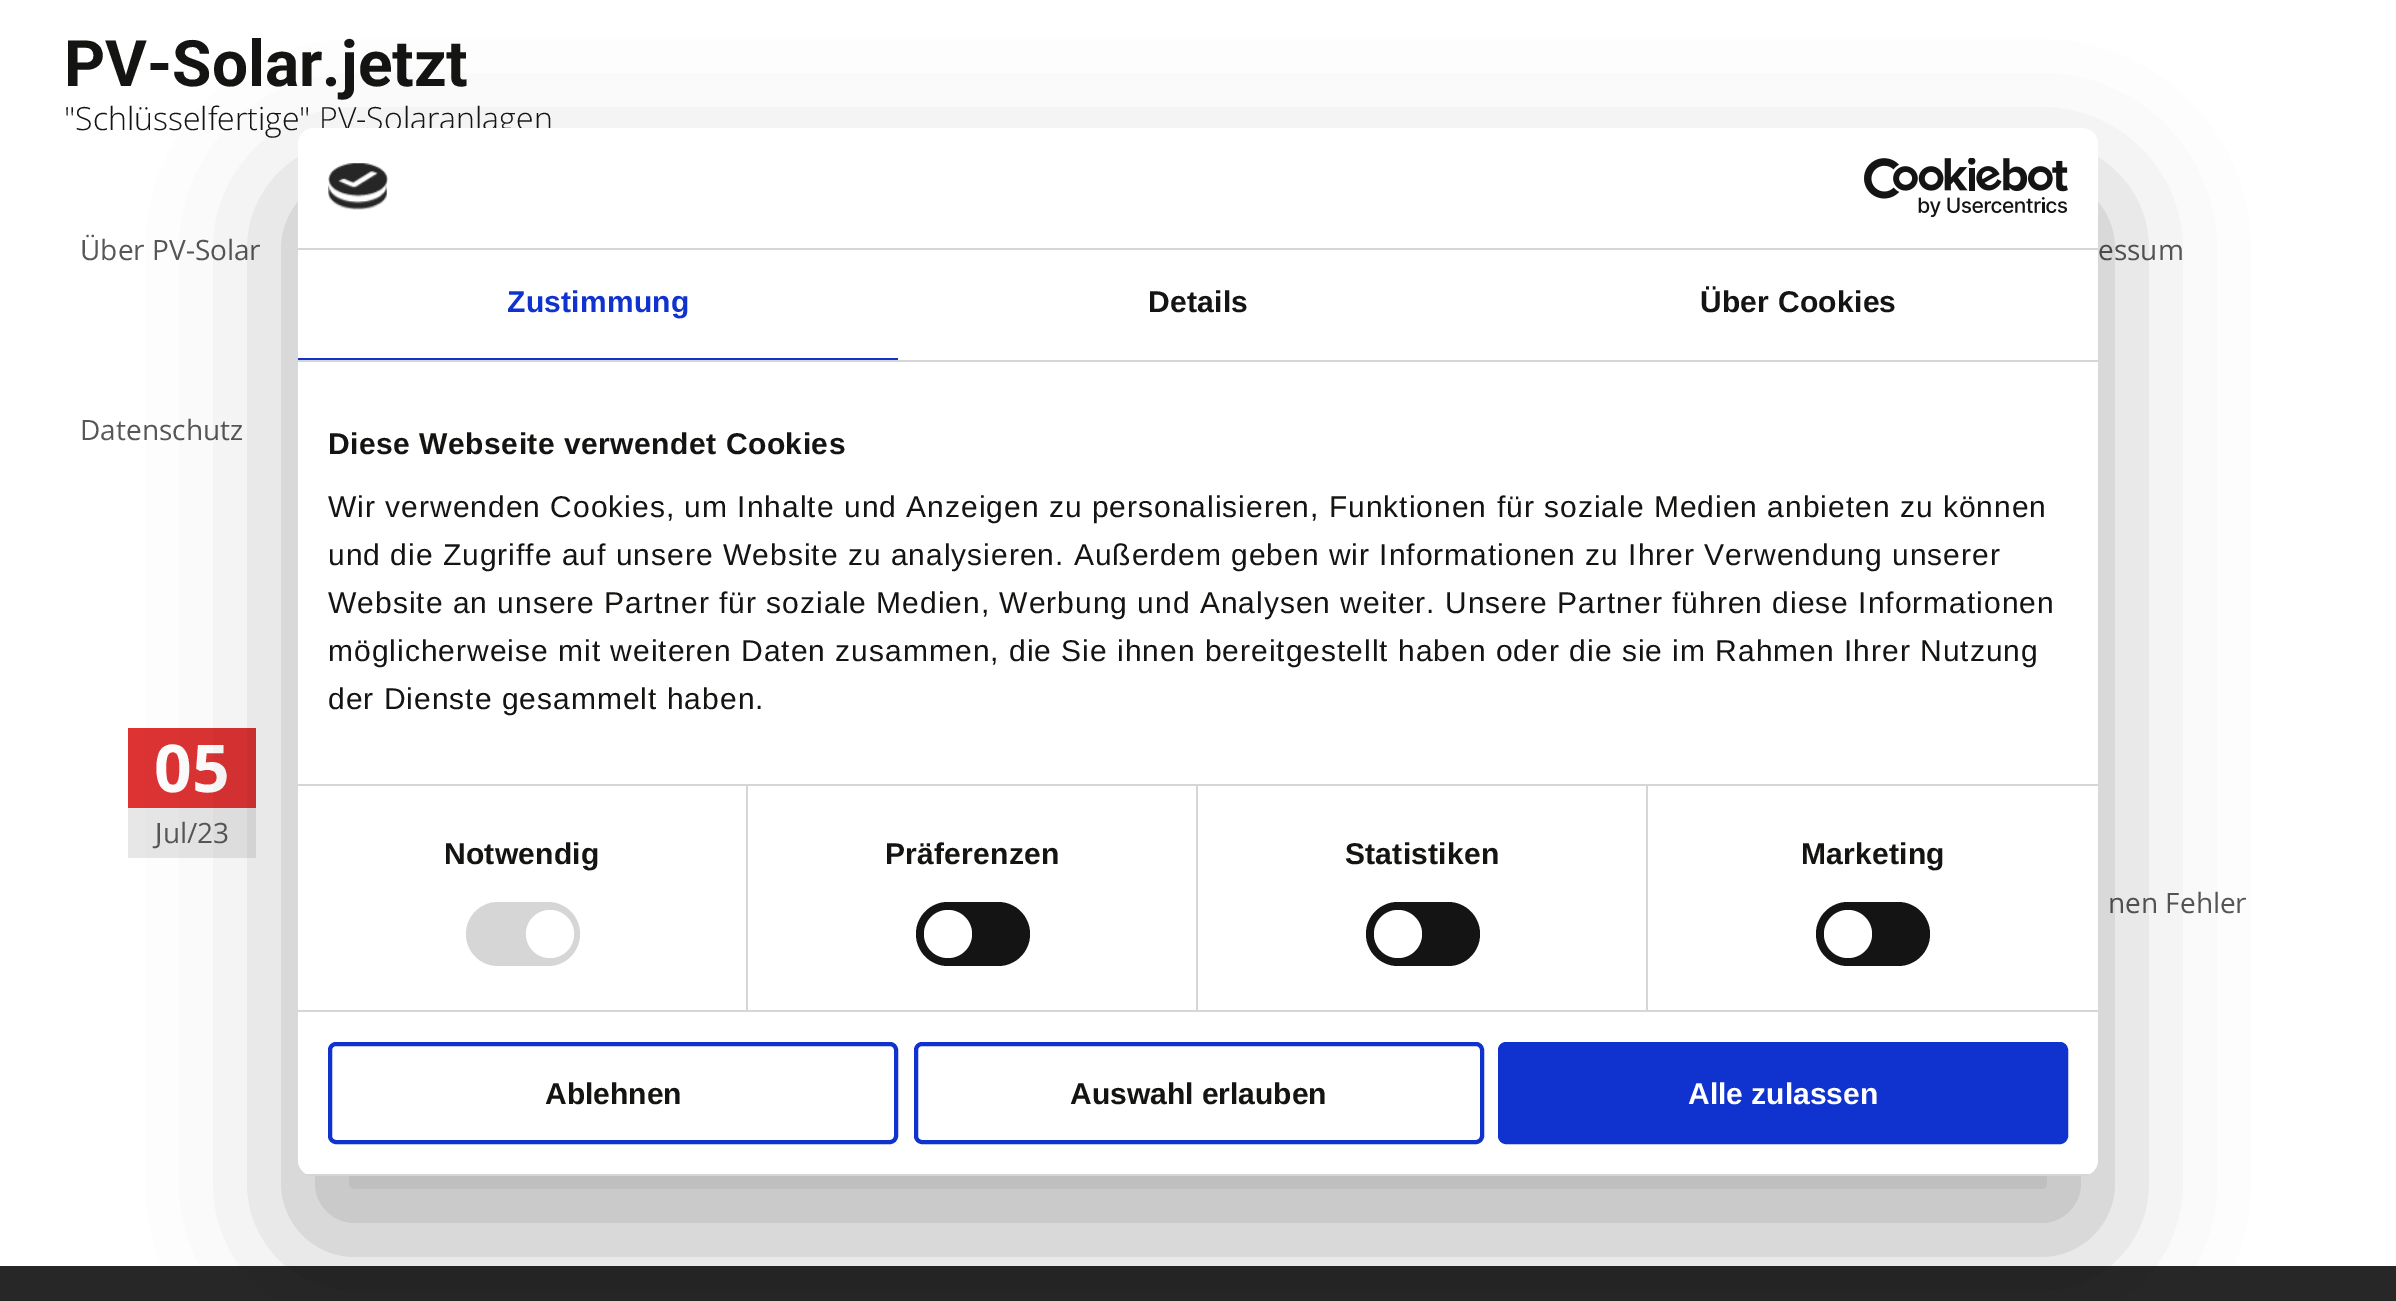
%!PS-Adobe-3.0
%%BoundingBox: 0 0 2396 1301
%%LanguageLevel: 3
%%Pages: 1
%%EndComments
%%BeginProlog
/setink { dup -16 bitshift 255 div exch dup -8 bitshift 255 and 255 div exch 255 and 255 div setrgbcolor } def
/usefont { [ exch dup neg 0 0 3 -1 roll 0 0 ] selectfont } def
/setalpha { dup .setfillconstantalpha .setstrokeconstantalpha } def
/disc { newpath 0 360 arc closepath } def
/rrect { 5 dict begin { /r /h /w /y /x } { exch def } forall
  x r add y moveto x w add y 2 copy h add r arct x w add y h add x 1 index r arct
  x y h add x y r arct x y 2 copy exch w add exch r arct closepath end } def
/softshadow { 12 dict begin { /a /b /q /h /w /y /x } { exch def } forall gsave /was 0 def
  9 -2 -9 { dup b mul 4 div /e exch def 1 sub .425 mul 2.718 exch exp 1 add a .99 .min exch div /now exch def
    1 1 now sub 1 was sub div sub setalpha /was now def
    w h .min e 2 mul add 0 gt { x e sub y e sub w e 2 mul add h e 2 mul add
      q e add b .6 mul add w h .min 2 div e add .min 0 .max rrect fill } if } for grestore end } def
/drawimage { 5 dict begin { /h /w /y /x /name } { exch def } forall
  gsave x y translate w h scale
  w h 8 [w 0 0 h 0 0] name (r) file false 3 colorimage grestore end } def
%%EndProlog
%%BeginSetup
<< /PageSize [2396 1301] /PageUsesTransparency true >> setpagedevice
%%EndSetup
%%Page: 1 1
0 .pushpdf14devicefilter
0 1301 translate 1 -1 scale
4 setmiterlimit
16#FFFFFF setink
0 0 2396 1301 rectfill
/Roboto-Bold 64 usefont
16#141412 setink
64 86 moveto (PV-Solar.jetzt) show
/OpenSans-Light 32 usefont
64 130 moveto ("Schlüsselfertige" PV-Solaranlagen) show
/OpenSans-Regular 28 usefont
16#575757 setink
[
    [(Über PV-Solar) 80 260]
    [(essum) 2098 260]
    [(Datenschutz) 80 440]
] { aload pop moveto show } forall
16#DD3333 setink
128 728 128 80 rectfill
/OpenSans-Bold 66 usefont
16#FFFFFF setink
154 792 moveto (05) show
16#E7E7E7 setink
128 808 128 50 rectfill
/OpenSans-Regular 28 usefont
16#575757 setink
155 843 moveto (Jul/23) show
2108 913 moveto (nen Fehler) show
16#272727 setink
0 1266 2396 35 rectfill
16#000000 setink
298 192 1800 1048 16 68 0.3 softshadow
16#FFFFFF setink
298 128 1800 1048 16 rrect fill
16#D6D6D6 setink
298 248 1800 2 rectfill
(img1.raw) 328 163 60 47 drawimage
(img2.raw) 1864 158 204 60 drawimage
298 360 1800 2 rectfill
16#1032CF setink
298 358 600 2 rectfill
/LiberationSans-Bold 30 usefont
507 312 moveto 0.25 0 (Zustimmung) ashow
16#141412 setink
1148 312 moveto 0.25 0 (Details) ashow
1700 312 moveto 0.25 0 (Über Cookies) ashow
16#D6D6D6 setink
298 784 1800 2 rectfill
16#141412 setink
328 454 moveto 0.5 0 (Diese Webseite verwendet Cookies) ashow
/LiberationSans-Regular 30 usefont
328 517 moveto 1 0 (Wir verwenden Cookies, um Inhalte und Anzeigen zu personalisieren, Funktionen für soziale Medien anbieten zu können) ashow
328 565 moveto 1 0 (und die Zugriffe auf unsere Website zu analysieren. Außerdem geben wir Informationen zu Ihrer Verwendung unserer) ashow
328 613 moveto 1 0 (Website an unsere Partner für soziale Medien, Werbung und Analysen weiter. Unsere Partner führen diese Informationen) ashow
328 661 moveto 1 0 (möglicherweise mit weiteren Daten zusammen, die Sie ihnen bereitgestellt haben oder die sie im Rahmen Ihrer Nutzung) ashow
328 709 moveto 1 0 (der Dienste gesammelt haben.) ashow
16#D6D6D6 setink
298 1010 1800 2 rectfill
746 786 2 224 rectfill
/LiberationSans-Bold 30 usefont
16#141412 setink
444 864 moveto 0.25 0 (Notwendig) ashow
16#D6D6D6 setink
466 902 114 64 32 rrect fill
16#FFFFFF setink
550 934 24 disc fill
16#D6D6D6 setink
1196 786 2 224 rectfill
16#141412 setink
885 864 moveto 0.25 0 (Präferenzen) ashow
16#141414 setink
916 902 114 64 32 rrect fill
16#FFFFFF setink
948 934 24 disc fill
16#D6D6D6 setink
1646 786 2 224 rectfill
16#141412 setink
1345 864 moveto 0.25 0 (Statistiken) ashow
16#141414 setink
1366 902 114 64 32 rrect fill
16#FFFFFF setink
1398 934 24 disc fill
16#141412 setink
1801 864 moveto 0.25 0 (Marketing) ashow
16#141414 setink
1816 902 114 64 32 rrect fill
16#FFFFFF setink
1848 934 24 disc fill
gsave
298 128 1800 1048 16 rrect clip newpath
16#D6D6D6 setink
298 1174 1800 2 rectfill
grestore
16#1032CF setink
4 setlinewidth
330 1044 566 98 6 rrect stroke
16#141412 setink
545 1104 moveto (Ablehnen) show
16#1032CF setink
916 1044 566 98 6 rrect stroke
16#141412 setink
1070 1104 moveto (Auswahl erlauben) show
16#1032CF setink
1500 1044 566 98 6 rrect gsave fill grestore
stroke
16#FFFFFF setink
1688 1104 moveto (Alle zulassen) show
.poppdf14devicefilter showpage
%%EOF
